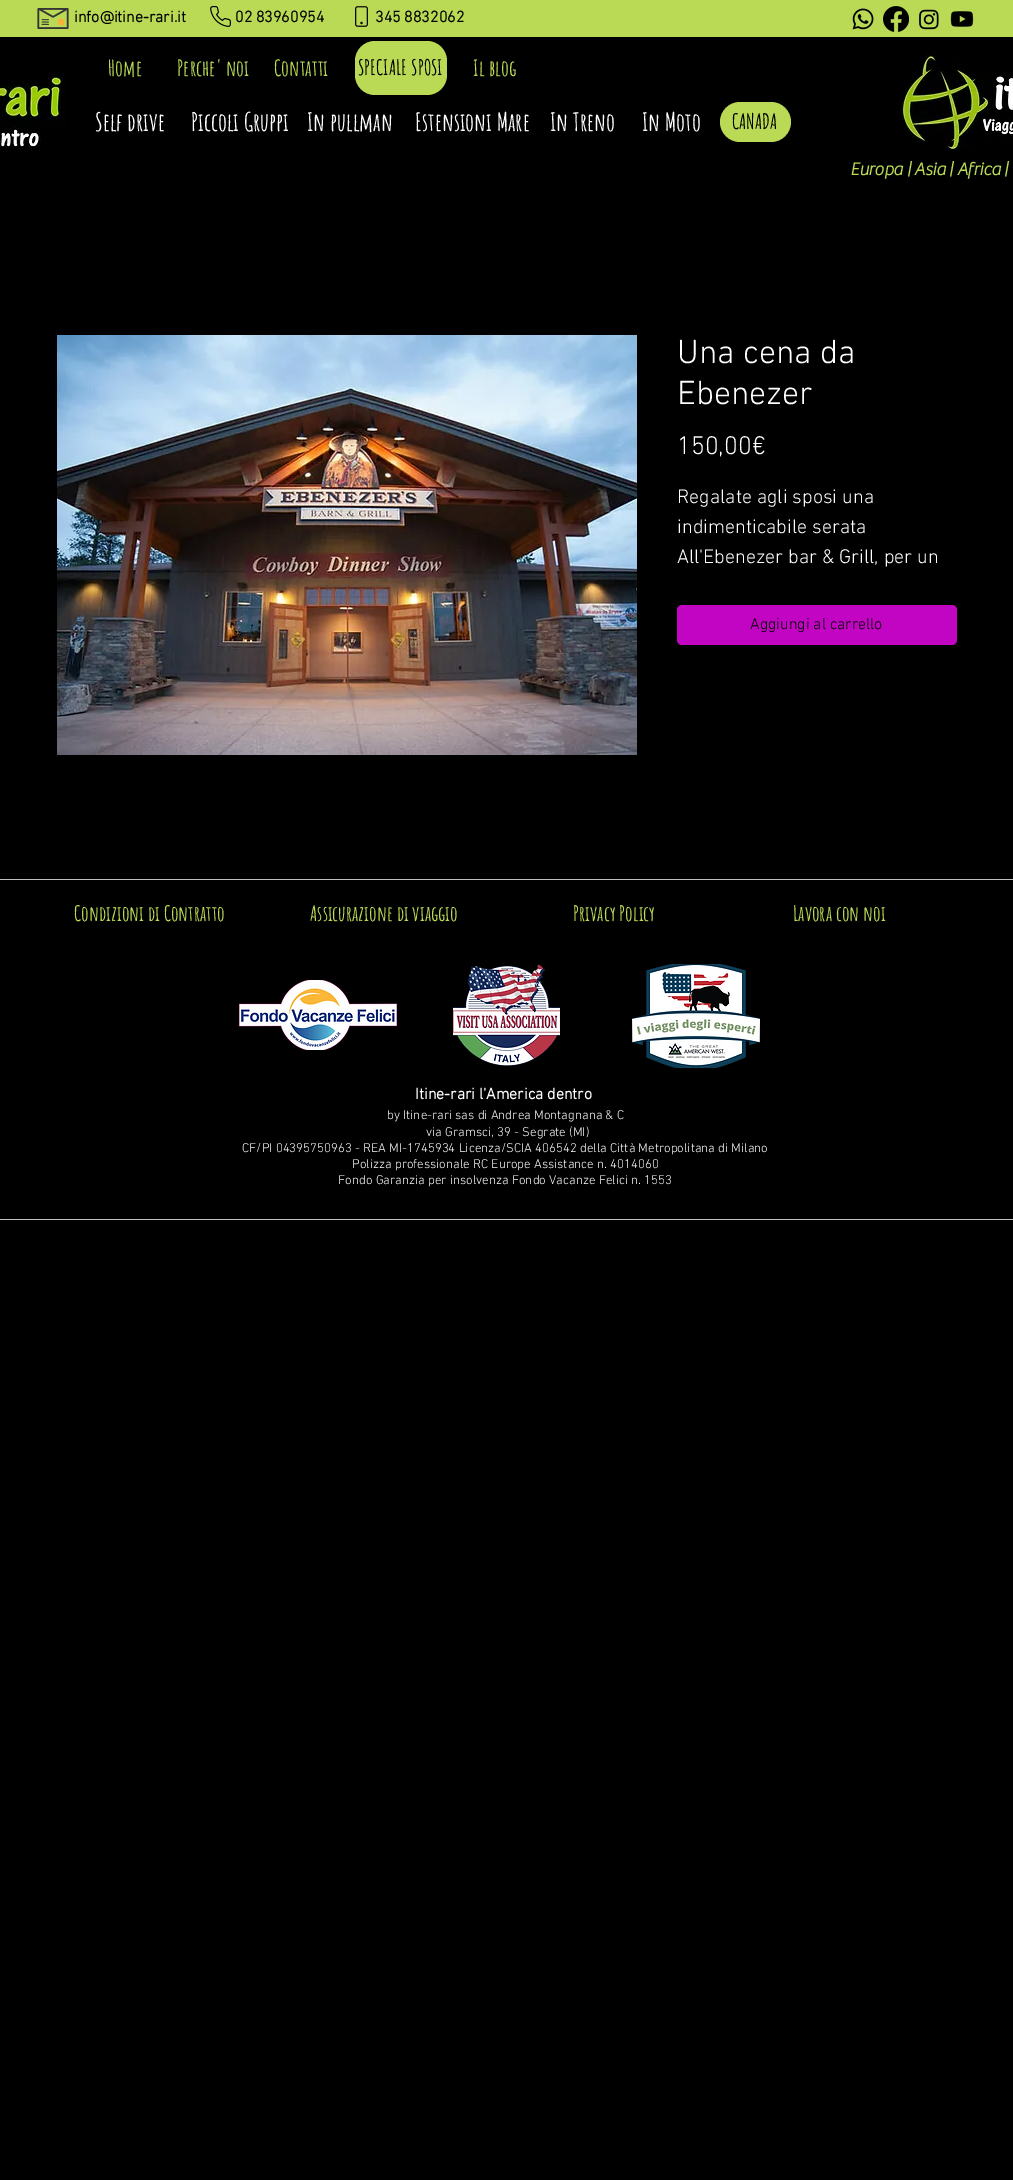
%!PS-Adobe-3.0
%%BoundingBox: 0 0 1013 2180
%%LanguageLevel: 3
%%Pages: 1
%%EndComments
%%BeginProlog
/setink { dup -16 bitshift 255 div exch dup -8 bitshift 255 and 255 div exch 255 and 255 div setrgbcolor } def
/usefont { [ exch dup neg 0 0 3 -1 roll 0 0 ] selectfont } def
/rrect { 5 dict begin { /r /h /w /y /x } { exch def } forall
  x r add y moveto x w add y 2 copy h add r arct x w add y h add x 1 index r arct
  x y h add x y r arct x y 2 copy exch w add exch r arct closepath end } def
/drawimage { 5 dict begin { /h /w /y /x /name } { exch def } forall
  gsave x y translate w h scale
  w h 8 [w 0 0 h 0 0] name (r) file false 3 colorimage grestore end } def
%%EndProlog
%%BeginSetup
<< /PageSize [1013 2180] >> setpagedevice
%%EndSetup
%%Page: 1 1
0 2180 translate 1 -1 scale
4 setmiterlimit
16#000000 setink
0 0 1013 2180 rectfill
16#BADA55 setink
0 0 1013 37 rectfill
(img1.raw) 37 8 32 21 drawimage
/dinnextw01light-Bold 16 usefont
16#000000 setink
74 22 moveto (info@itine-rari.it) show
(img2.raw) 210 6 21 21 drawimage
235 22 moveto (02 83960954) show
(img3.raw) 355 6 13 21 drawimage
375 22 moveto (345 8832062) show
(img4.raw) 852 8 22 22 drawimage
(img5.raw) 883 6 26 26 drawimage
(img6.raw) 919 9 20 21 drawimage
(img7.raw) 950 11 24 16 drawimage
/AmaticSC-Bold 22 usefont
16#BADA55 setink
[
    [(Home) 108 76]
    [(Perche' noi) 177 76]
    [(Contatti) 274 76]
] { aload pop moveto show } forall
355 41 92 54 20 rrect fill
/AmaticSC-Bold 21 usefont
16#000000 setink
358 75 moveto (SPECIALE SPOSI) show
/AmaticSC-Bold 22 usefont
16#BADA55 setink
473 76 moveto (Il blog) show
(img8.raw) 901 50 112 102 drawimage
(img9.raw) 0 73 66 77 drawimage
/AmaticSC-Bold 25 usefont
16#FFFFFF setink
[
    [(Self drive) 95 131]
    [(Piccoli Gruppi) 191 131]
    [(In pullman) 307 131]
    [(Estensioni Mare) 415 131]
    [(In Treno) 550 131]
    [(In Moto) 642 131]
] { aload pop moveto show } forall
16#BADA55 setink
720 102 71 40 20 rrect fill
/AmaticSC-Bold 21 usefont
16#000000 setink
732 129 moveto (CANADA) show
/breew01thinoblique-Bold 18 usefont
16#BADA55 setink
850 175 moveto (Europa | Asia | Africa |) show
(img10.raw) 57 335 580 420 drawimage
/dinnextw01light-Light 34 usefont
16#FFFFFF setink
677 363 moveto (Una cena da) show
677 404 moveto (Ebenezer) show
/dinnextw01light-Light 26 usefont
677 454 moveto (150,00€) show
/dinnextw01light-Light 20 usefont
[
    [(Regalate agli sposi una) 677 503]
    [(indimenticabile serata) 677 533]
    [(All'Ebenezer bar & Grill, per un) 677 563]
] { aload pop moveto show } forall
16#C105C2 setink
677 605 280 40 5 rrect fill
/dinnextw01light-Light 16 usefont
16#000000 setink
750 629 moveto (Aggiungi al carrello) show
16#C0C0C0 setink
0 879 1013 1 rectfill
0 1219 1013 1 rectfill
/AmaticSC-Bold 21 usefont
16#BADA55 setink
[
    [(Condizioni di Contratto) 74 921]
    [(Assicurazione di viaggio) 310 921]
    [(Privacy Policy) 573 921]
    [(Lavora con noi) 793 921]
] { aload pop moveto show } forall
(img11.raw) 239 980 158 70 drawimage
(img12.raw) 453 964 107 102 drawimage
(img13.raw) 632 964 128 104 drawimage
/dinnextw01light-Bold 16 usefont
16#FFFFFF setink
415 1099 moveto (Itine-rari l'America dentro) show
/dinnextw01light-Light 13 usefont
[
    [(by Itine-rari sas di Andrea Montagnana & C) 387 1119]
    [(via Gramsci, 39 - Segrate \(MI\)) 426 1136]
    [(CF/PI 04395750963 - REA MI-1745934 Licenza/SCIA 406542 della Città Metropolitana di Milano) 242 1152]
    [(Polizza professionale RC Europe Assistance n. 4014060) 352 1168]
    [(Fondo Garanzia per insolvenza Fondo Vacanze Felici n. 1553) 338 1184]
] { aload pop moveto show } forall
showpage
%%EOF
